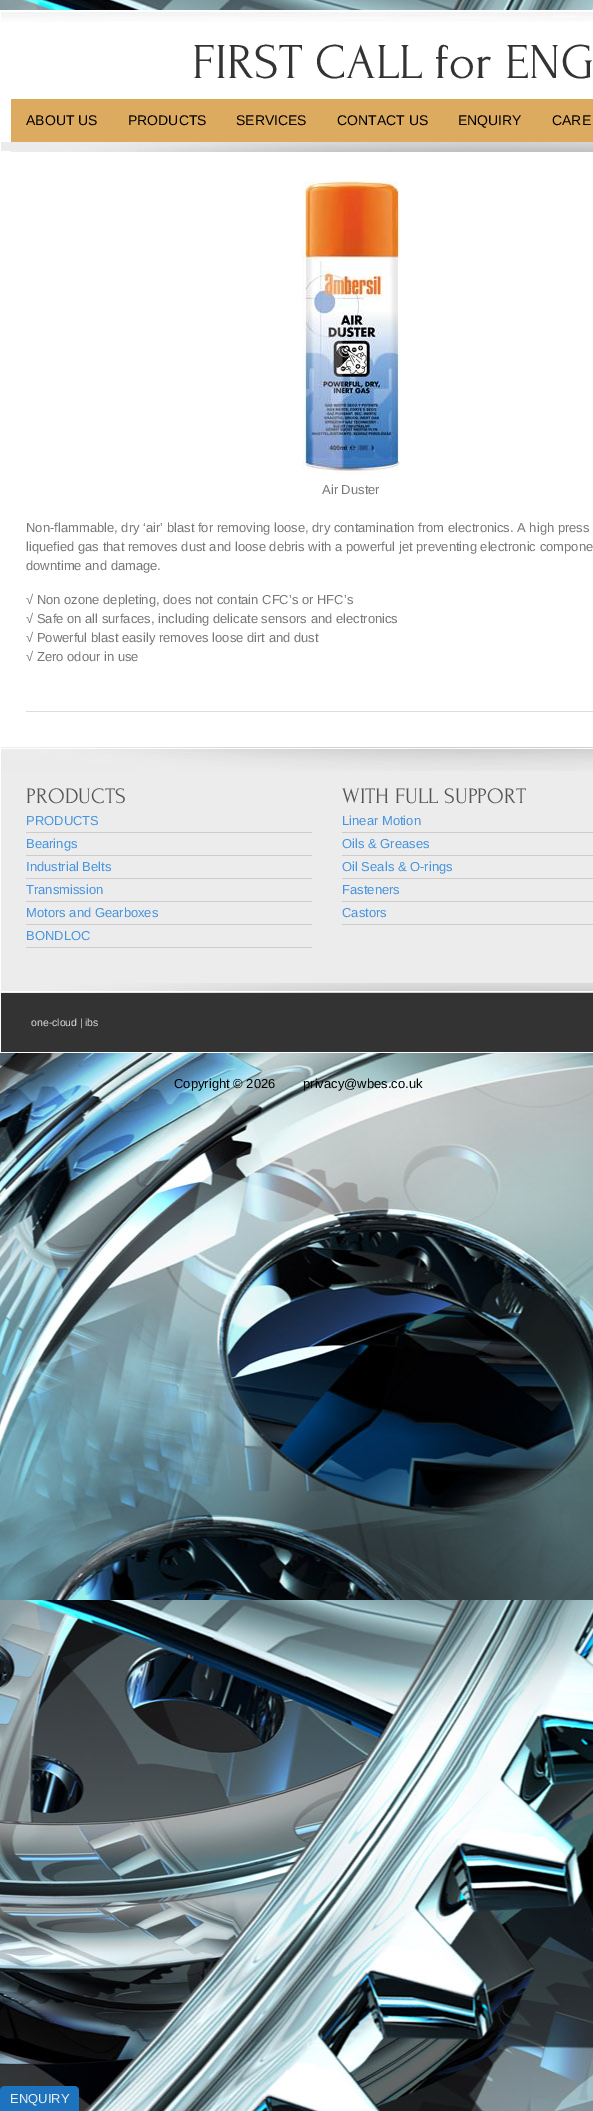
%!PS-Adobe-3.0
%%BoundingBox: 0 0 593 2111
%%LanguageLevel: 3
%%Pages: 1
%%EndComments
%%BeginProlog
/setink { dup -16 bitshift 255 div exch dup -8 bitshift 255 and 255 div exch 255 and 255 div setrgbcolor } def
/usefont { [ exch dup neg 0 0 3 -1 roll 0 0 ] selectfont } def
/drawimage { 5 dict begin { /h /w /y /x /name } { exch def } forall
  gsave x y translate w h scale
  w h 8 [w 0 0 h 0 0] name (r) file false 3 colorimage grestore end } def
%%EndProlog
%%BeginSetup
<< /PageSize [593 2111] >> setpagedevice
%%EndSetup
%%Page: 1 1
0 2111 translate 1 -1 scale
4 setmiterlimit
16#FFFFFF setink
0 0 593 2111 rectfill
(img1.raw) 0 0 593 2111 drawimage
0 10 593 1043 rectfill
(img2.raw) 1 12 592 10 drawimage
/Forum-Regular 50 usefont
16#333333 setink
192 78 moveto (FIRST CALL for ENG) show
16#DDAB5F setink
11 99 582 43 rectfill
/LiberationSans-Regular 14 usefont
16#000000 setink
[
    [(ABOUT US) 26 125]
    [(PRODUCTS) 128 125]
    [(SERVICES) 236 125]
    [(CONTACT US) 337 125]
    [(ENQUIRY) 458 125]
    [(CARE) 552 125]
] { aload pop moveto show } forall
(img3.raw) 1 142 592 10 drawimage
(img4.raw) 302 181 98 293 drawimage
/LiberationSans-Regular 13 usefont
16#777777 setink
[
    [(Air Duster) 322 494]
    [(Non-flammable, dry ‘air’ blast for removing loose, dry contamination from electronics. A high press) 26 532]
    [(liquefied gas that removes dust and loose debris with a powerful jet preventing electronic compone) 26 551]
    [(downtime and damage.) 26 570]
    [(√ Non ozone depleting, does not contain CFC’s or HFC’s) 26 604]
    [(√ Safe on all surfaces, including delicate sensors and electronics) 26 623]
    [(√ Powerful blast easily removes loose dirt and dust) 26 642]
    [(√ Zero odour in use) 26 661]
] { aload pop moveto show } forall
16#DDDDDD setink
26 711 567 1 rectfill
16#EBECEB setink
1 771 592 212 rectfill
(img5.raw) 1 747 592 24 drawimage
/Forum-Regular 22 usefont
16#555555 setink
26 803 moveto (PRODUCTS) show
16#CCCCCC setink
26 832 286 1 rectfill
/LiberationSans-Regular 13 usefont
16#4794E0 setink
26 825 moveto (PRODUCTS) show
16#CCCCCC setink
26 855 286 1 rectfill
16#4794E0 setink
26 848 moveto (Bearings) show
16#CCCCCC setink
26 878 286 1 rectfill
16#4794E0 setink
26 871 moveto (Industrial Belts) show
16#CCCCCC setink
26 901 286 1 rectfill
16#4794E0 setink
26 894 moveto (Transmission) show
16#CCCCCC setink
26 924 286 1 rectfill
16#4794E0 setink
26 917 moveto (Motors and Gearboxes) show
16#CCCCCC setink
26 947 286 1 rectfill
16#4794E0 setink
26 940 moveto (BONDLOC) show
/Forum-Regular 22 usefont
16#555555 setink
342 803 moveto (WITH FULL SUPPORT) show
16#CCCCCC setink
342 832 251 1 rectfill
/LiberationSans-Regular 13 usefont
16#4794E0 setink
342 825 moveto (Linear Motion) show
16#CCCCCC setink
342 855 251 1 rectfill
16#4794E0 setink
342 848 moveto (Oils & Greases) show
16#CCCCCC setink
342 878 251 1 rectfill
16#4794E0 setink
342 871 moveto (Oil Seals & O-rings) show
16#CCCCCC setink
342 901 251 1 rectfill
16#4794E0 setink
342 894 moveto (Fasteners) show
16#CCCCCC setink
342 924 251 1 rectfill
16#4794E0 setink
342 917 moveto (Castors) show
(img6.raw) 1 983 592 10 drawimage
16#333333 setink
1 993 592 59 rectfill
/LiberationSans-Regular 10.5 usefont
16#DDDDDD setink
31 1026 moveto (one-cloud) show
16#CCCCCC setink
80 1026 moveto (|) show
16#DDDDDD setink
85 1026 moveto (ibs) show
/LiberationSans-Regular 13 usefont
16#000000 setink
174 1088 moveto (Copyright © 2026) show
303 1088 moveto (privacy@wbes.co.uk) show
16#1E73BE setink
5 2086 moveto 74 2086 lineto 77 2086 79 2088 79 2091 curveto 79 2111 lineto 0 2111 lineto 0 2091 lineto 0 2088 2 2086 5 2086 curveto closepath fill
16#EFEFEF setink
10 2103 moveto (ENQUIRY) show
showpage
%%EOF
